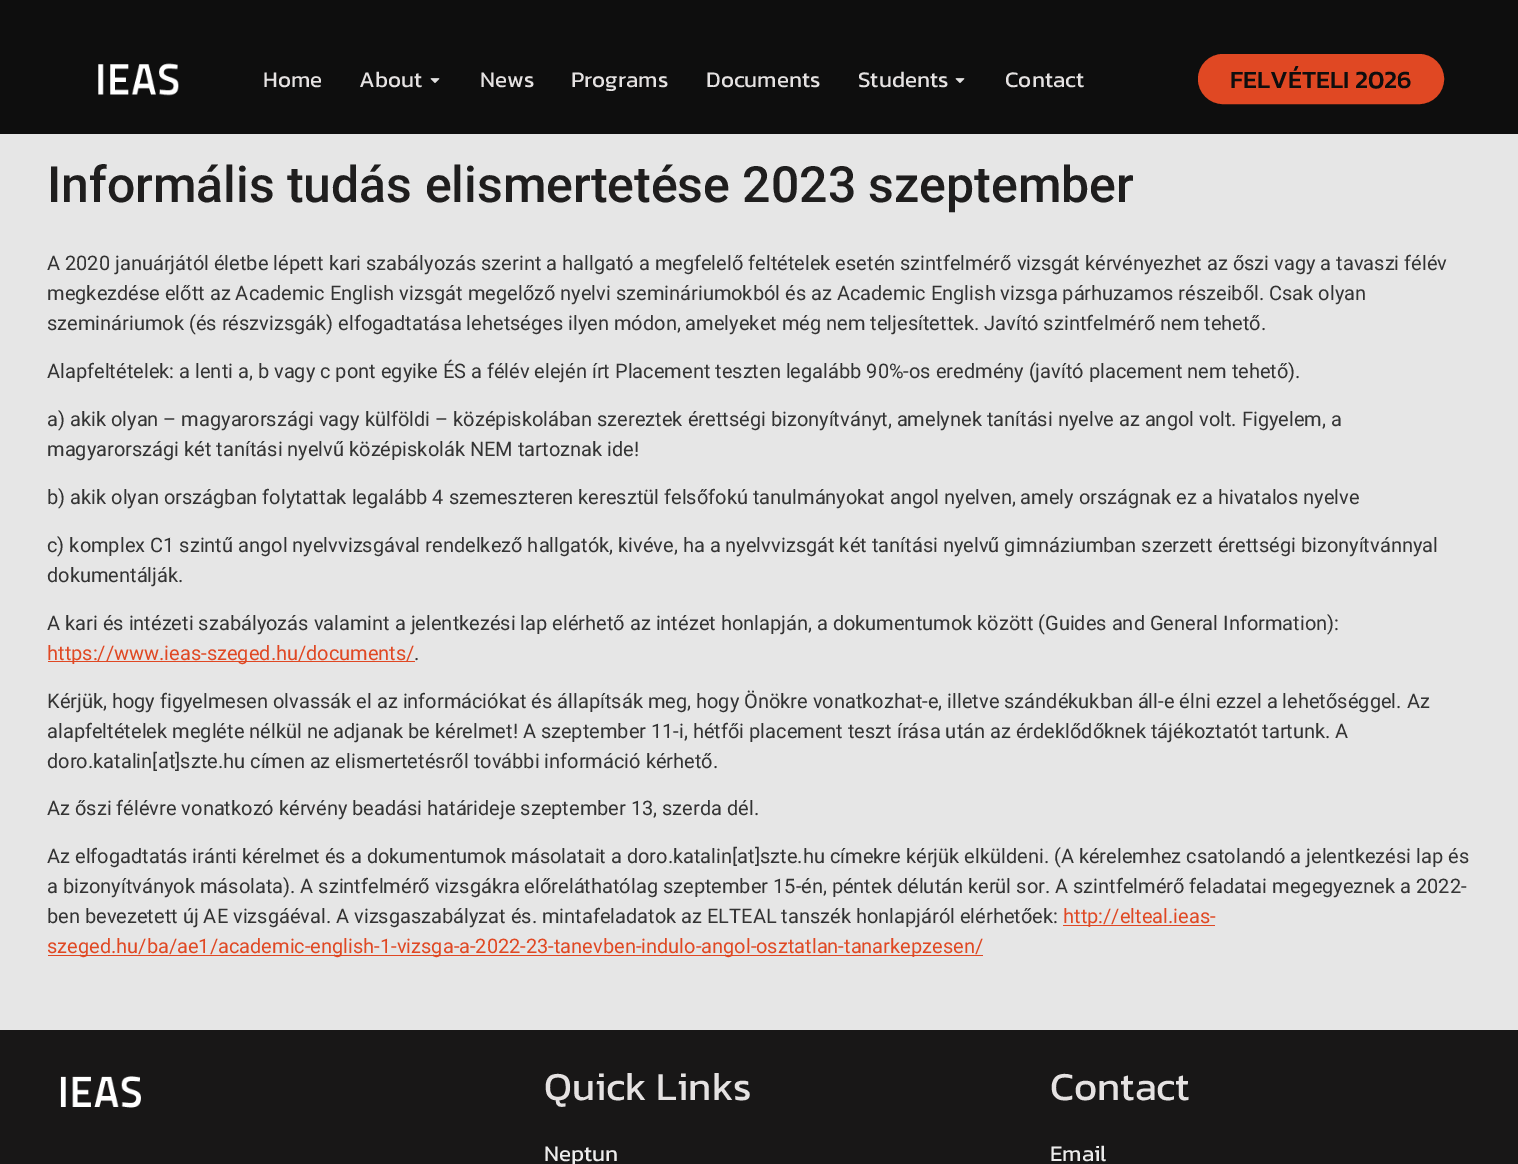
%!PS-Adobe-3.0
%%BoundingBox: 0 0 1518 1164
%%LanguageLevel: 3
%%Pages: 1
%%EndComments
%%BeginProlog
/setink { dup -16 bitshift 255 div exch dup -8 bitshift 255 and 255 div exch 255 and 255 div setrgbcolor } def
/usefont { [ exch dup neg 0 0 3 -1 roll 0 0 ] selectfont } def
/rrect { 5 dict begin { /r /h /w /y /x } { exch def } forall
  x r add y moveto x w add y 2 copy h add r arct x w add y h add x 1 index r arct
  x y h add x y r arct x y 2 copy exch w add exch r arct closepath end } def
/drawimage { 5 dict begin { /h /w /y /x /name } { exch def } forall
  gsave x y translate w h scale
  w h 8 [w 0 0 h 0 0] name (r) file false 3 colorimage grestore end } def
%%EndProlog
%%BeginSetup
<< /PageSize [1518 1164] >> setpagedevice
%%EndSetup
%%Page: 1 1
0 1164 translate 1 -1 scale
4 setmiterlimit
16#E6E6E6 setink
0 0 1518 1164 rectfill
16#0E0E0E setink
0 0 1518 134 rectfill
(img1.raw) 98 63 81 33 drawimage
/Kanit-Regular 22.5 usefont
16#E5E2E2 setink
263 87 moveto (Home) show
359 87 moveto (About) show
(img2.raw) 430 78 10 5 drawimage
[
    [(News) 480 87]
    [(Programs) 571 87]
    [(Documents) 706 87]
    [(Students) 858 87]
] { aload pop moveto show } forall
(img2.raw) 955 78 10 5 drawimage
1005 87 moveto (Contact) show
16#E04823 setink
1199.5 55.5 243 47 23.5 rrect gsave fill grestore
3 setlinewidth
stroke
/Kanit-Medium 25 usefont
16#0E0E0E setink
1230 88 moveto (FELVÉTELI 2026) show
/Roboto-Medium 50 usefont
16#1F1E1E setink
47 202 moveto (Informális tudás elismertetése 2023 szeptember) show
/Roboto-Regular 20 usefont
16#333333 setink
[
    [(A 2020 januárjától életbe lépett kari szabályozás szerint a hallgató a megfelelő feltételek esetén szintfelmérő vizsgát kérvényezhet az őszi vagy a tavaszi félév) 47 270]
    [(megkezdése előtt az Academic English vizsgát megelőző nyelvi szemináriumokból és az Academic English vizsga párhuzamos részeiből. Csak olyan) 47 300]
    [(szemináriumok \(és részvizsgák\) elfogadtatása lehetséges ilyen módon, amelyeket még nem teljesítettek. Javító szintfelmérő nem tehető.) 47 330]
    [(Alapfeltételek: a lenti a, b vagy c pont egyike ÉS a félév elején írt Placement teszten legalább 90%-os eredmény \(javító placement nem tehető\).) 47 378]
    [(a\) akik olyan – magyarországi vagy külföldi – középiskolában szereztek érettségi bizonyítványt, amelynek tanítási nyelve az angol volt. Figyelem, a) 47 426]
    [(magyarországi két tanítási nyelvű középiskolák NEM tartoznak ide!) 47 456]
    [(b\) akik olyan országban folytattak legalább 4 szemeszteren keresztül felsőfokú tanulmányokat angol nyelven, amely országnak ez a hivatalos nyelve) 47 504]
    [(c\) komplex C1 szintű angol nyelvvizsgával rendelkező hallgatók, kivéve, ha a nyelvvizsgát két tanítási nyelvű gimnáziumban szerzett érettségi bizonyítvánnyal) 47 552]
    [(dokumentálják.) 47 582]
    [(A kari és intézeti szabályozás valamint a jelentkezési lap elérhető az intézet honlapján, a dokumentumok között \(Guides and General Information\):) 47 630]
] { aload pop moveto show } forall
16#E04823 setink
48 661 367 1 rectfill
47 660 moveto (https://www.ieas-szeged.hu/documents/) show
16#333333 setink
[
    [(.) 414 660]
    [(Kérjük, hogy figyelmesen olvassák el az információkat és állapítsák meg, hogy Önökre vonatkozhat-e, illetve szándékukban áll-e élni ezzel a lehetőséggel. Az) 47 708]
    [(alapfeltételek megléte nélkül ne adjanak be kérelmet! A szeptember 11-i, hétfői placement teszt írása után az érdeklődőknek tájékoztatót tartunk. A) 47 738]
    [(doro.katalin[at]szte.hu címen az elismertetésről további információ kérhető.) 47 768]
    [(Az őszi félévre vonatkozó kérvény beadási határideje szeptember 13, szerda dél.) 47 815]
    [(Az elfogadtatás iránti kérelmet és a dokumentumok másolatait a doro.katalin[at]szte.hu címekre kérjük elküldeni. \(A kérelemhez csatolandó a jelentkezési lap és) 47 863]
    [(a bizonyítványok másolata\). A szintfelmérő vizsgákra előreláthatólag szeptember 15-én, péntek délután kerül sor. A szintfelmérő feladatai megegyeznek a 2022-) 47 893]
    [(ben bevezetett új AE vizsgáéval. A vizsgaszabályzat és. mintafeladatok az ELTEAL tanszék honlapjáról elérhetőek:) 47 923]
] { aload pop moveto show } forall
16#E04823 setink
1063 925 152 1 rectfill
1063 923 moveto (http://elteal.ieas-) show
48 955 935 1 rectfill
47 953 moveto (szeged.hu/ba/ae1/academic-english-1-vizsga-a-2022-23-tanevben-indulo-angol-osztatlan-tanarkepzesen/) show
16#181717 setink
0 1030 1518 134 rectfill
(img3.raw) 60 1076 81 32 drawimage
/Kanit-Regular 40 usefont
16#E5E2E2 setink
544 1100 moveto (Quick Links) show
/Kanit-Regular 22.5 usefont
16#ECECEC setink
544 1161 moveto (Neptun) show
/Kanit-Regular 40 usefont
16#E5E2E2 setink
1050 1100 moveto (Contact) show
/Kanit-Regular 22.5 usefont
16#ECECEC setink
1050 1161 moveto (Email) show
showpage
%%EOF
